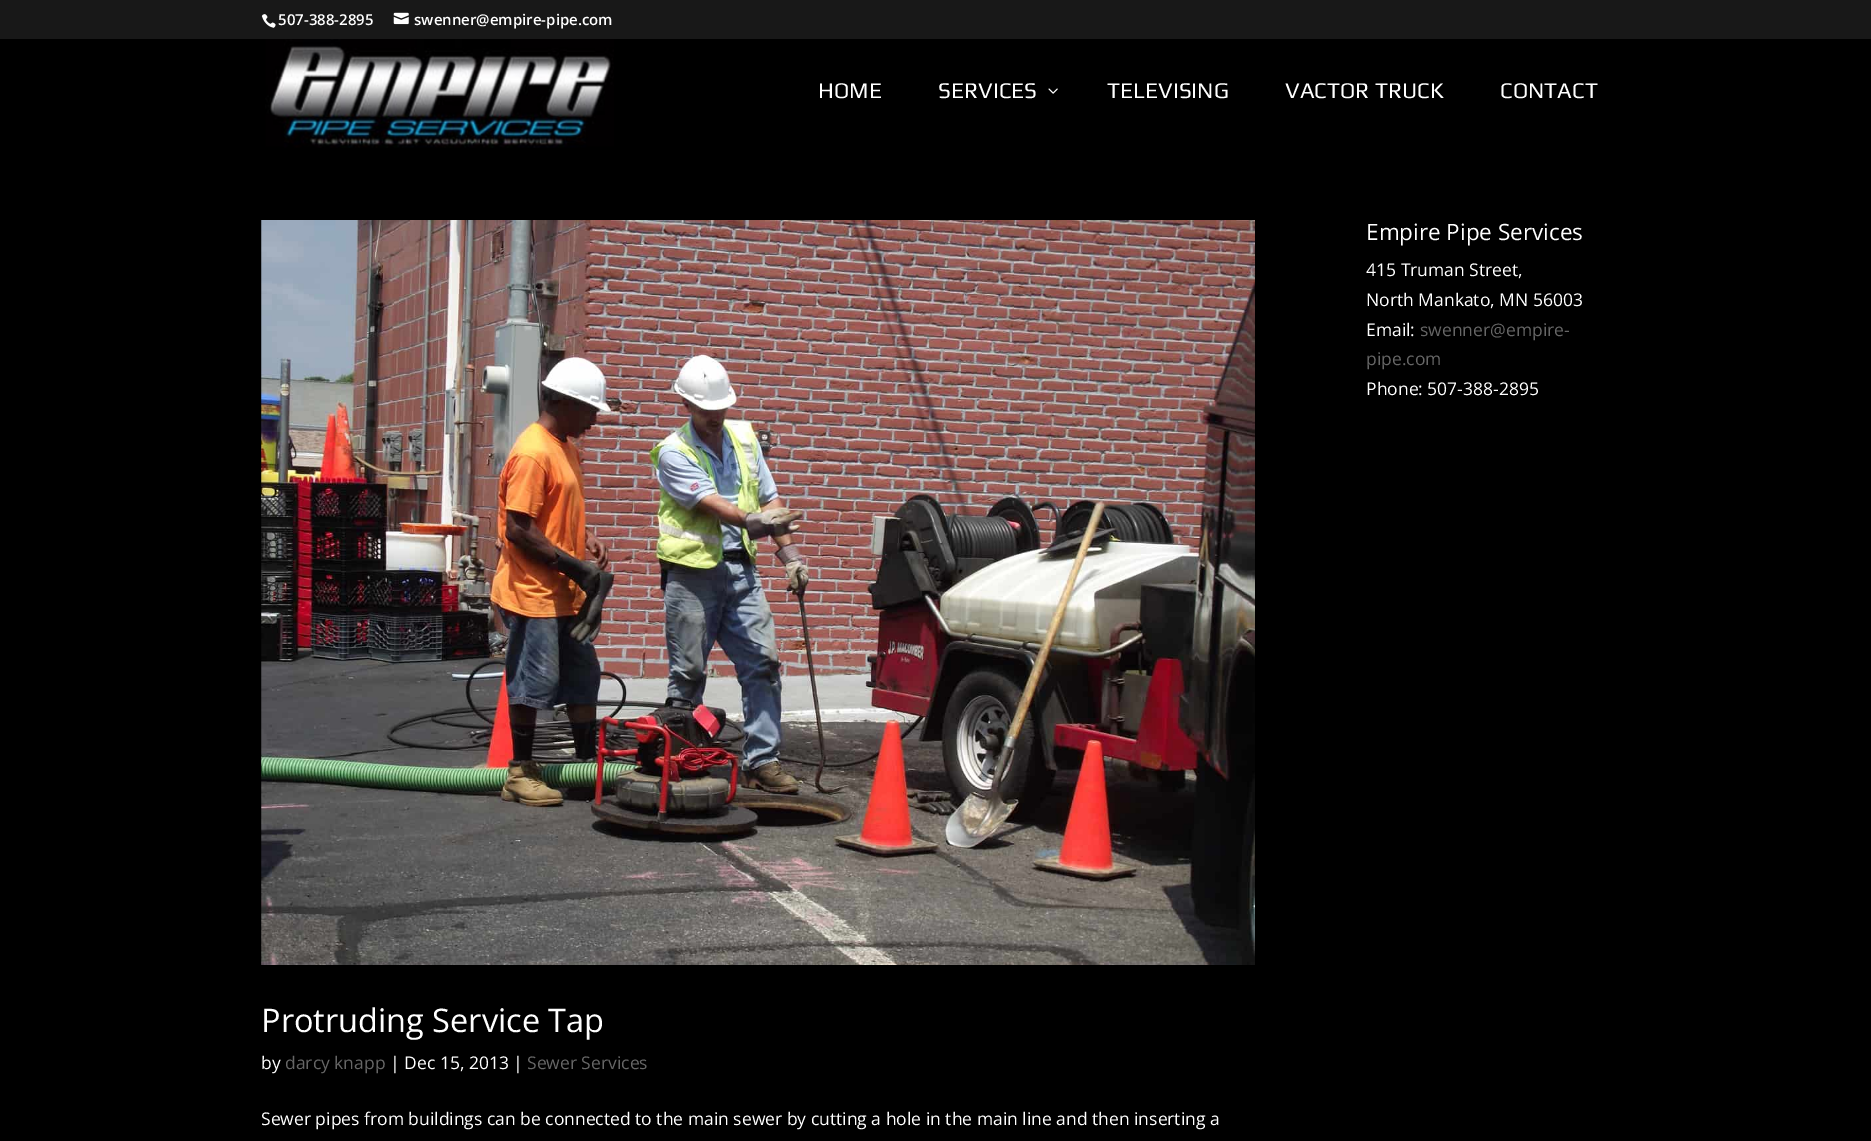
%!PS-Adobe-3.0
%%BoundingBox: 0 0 1871 1141
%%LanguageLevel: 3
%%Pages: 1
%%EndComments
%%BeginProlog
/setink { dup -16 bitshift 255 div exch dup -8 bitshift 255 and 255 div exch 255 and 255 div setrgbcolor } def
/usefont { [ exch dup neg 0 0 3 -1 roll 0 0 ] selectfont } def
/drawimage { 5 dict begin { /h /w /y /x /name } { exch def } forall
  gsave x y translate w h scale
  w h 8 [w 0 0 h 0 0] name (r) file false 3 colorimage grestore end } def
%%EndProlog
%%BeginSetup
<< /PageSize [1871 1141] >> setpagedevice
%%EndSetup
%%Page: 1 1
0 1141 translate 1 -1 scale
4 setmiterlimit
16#000000 setink
0 0 1871 1141 rectfill
16#181818 setink
0 0 1871 39 rectfill
(img1.raw) 261 14 15 14 drawimage
/OpenSans-SemiBold 15 usefont
16#FFFFFF setink
278 25 moveto (507-388-2895) show
(img2.raw) 393 12 16 13 drawimage
414 25 moveto (swenner@empire-pipe.com) show
(img3.raw) 265 39 349 109 drawimage
/Play-Regular 22.5 usefont
818 98 moveto (HOME) show
938 98 moveto (SERVICES) show
(img4.raw) 1048 88 10 6 drawimage
[
    [(TELEVISING) 1107 98]
    [(VACTOR TRUCK) 1285 98]
    [(CONTACT) 1500 98]
] { aload pop moveto show } forall
/OpenSans-Regular 22.5 usefont
1366 240 moveto (Empire Pipe Services) show
/OpenSans-Regular 17.5 usefont
[
    [(415 Truman Street,) 1366 276]
    [(North Mankato, MN 56003) 1366 306]
    [(Email:) 1366 336]
] { aload pop moveto show } forall
16#666666 setink
1420 336 moveto (swenner@empire-) show
1366 365 moveto (pipe.com) show
16#FFFFFF setink
1366 395 moveto (Phone: 507-388-2895) show
(img5.raw) 261 220 994 745 drawimage
/OpenSans-Regular 32.5 usefont
261 1032 moveto (Protruding Service Tap) show
/OpenSans-Regular 17.5 usefont
261 1069 moveto (by) show
16#666666 setink
285 1069 moveto (darcy knapp) show
16#FFFFFF setink
390 1069 moveto (| Dec 15, 2013 |) show
16#666666 setink
527 1069 moveto (Sewer Services) show
16#FFFFFF setink
261 1125 moveto (Sewer pipes from buildings can be connected to the main sewer by cutting a hole in the main line and then inserting a) show
showpage
%%EOF
